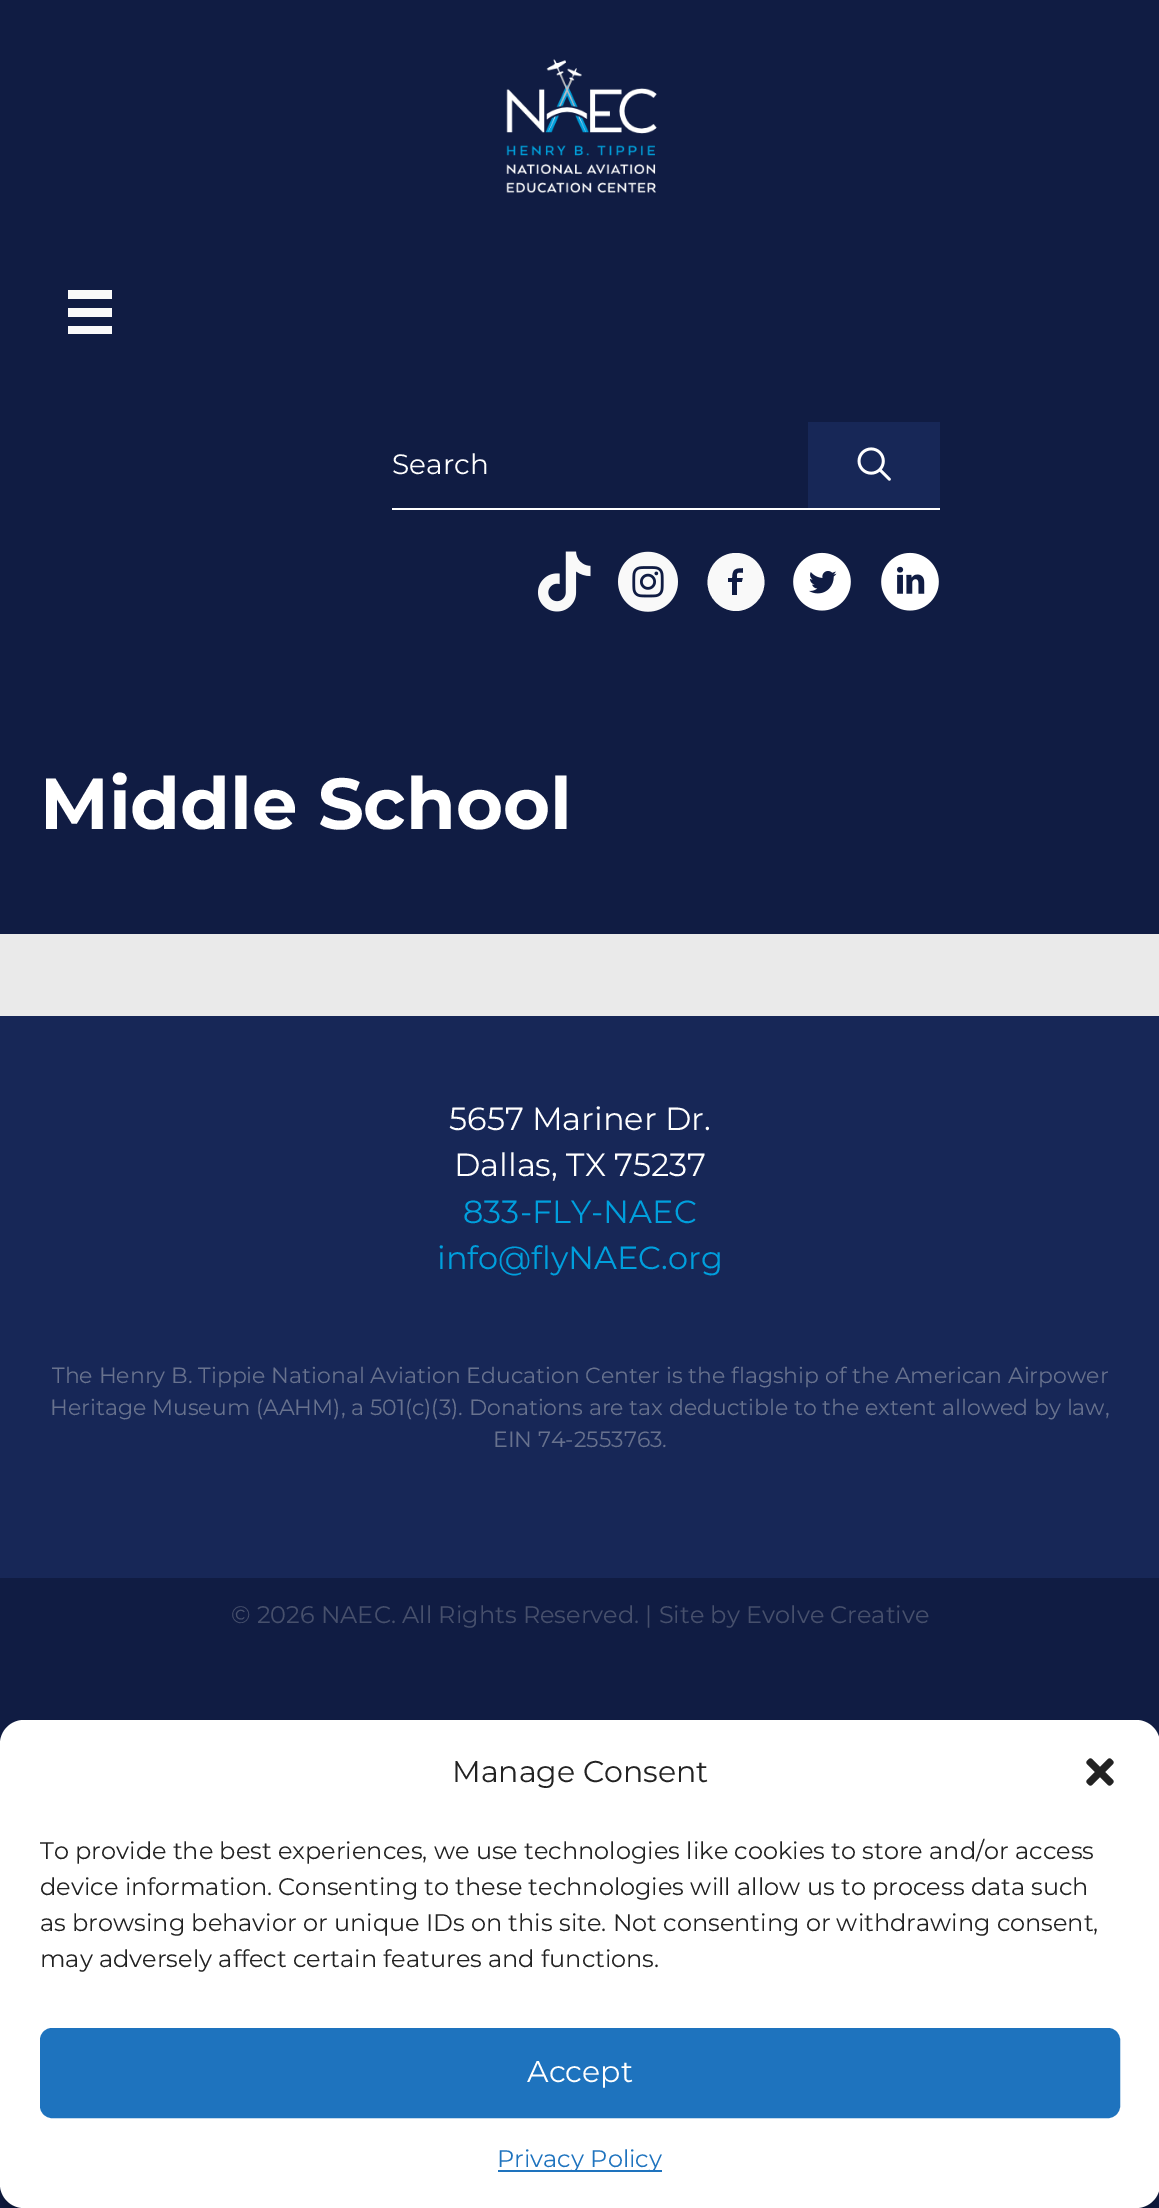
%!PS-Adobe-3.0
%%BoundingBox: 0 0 1159 2208
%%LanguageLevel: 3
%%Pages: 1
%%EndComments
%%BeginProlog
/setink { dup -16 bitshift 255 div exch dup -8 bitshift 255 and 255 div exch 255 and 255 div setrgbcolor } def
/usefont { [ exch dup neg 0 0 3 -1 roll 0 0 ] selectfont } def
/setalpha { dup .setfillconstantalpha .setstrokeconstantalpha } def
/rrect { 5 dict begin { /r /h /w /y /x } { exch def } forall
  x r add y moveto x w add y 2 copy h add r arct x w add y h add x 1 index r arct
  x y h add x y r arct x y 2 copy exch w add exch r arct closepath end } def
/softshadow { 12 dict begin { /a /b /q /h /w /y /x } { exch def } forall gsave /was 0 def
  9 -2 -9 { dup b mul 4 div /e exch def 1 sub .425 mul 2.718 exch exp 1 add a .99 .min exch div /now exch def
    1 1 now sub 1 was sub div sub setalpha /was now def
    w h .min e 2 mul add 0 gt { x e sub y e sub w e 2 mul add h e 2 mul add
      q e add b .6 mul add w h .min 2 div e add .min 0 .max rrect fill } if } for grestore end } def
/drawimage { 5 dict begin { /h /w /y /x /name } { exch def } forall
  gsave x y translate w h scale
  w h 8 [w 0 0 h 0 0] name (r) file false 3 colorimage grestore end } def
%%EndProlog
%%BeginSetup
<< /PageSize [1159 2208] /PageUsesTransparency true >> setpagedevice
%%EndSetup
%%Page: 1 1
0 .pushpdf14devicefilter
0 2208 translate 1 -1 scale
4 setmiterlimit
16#101C43 setink
0 0 1159 2208 rectfill
(img1.raw) 506 59 151 134 drawimage
[
    [68 290 44 9 16#F9F9F9]
    [68 308 44 9 16#F9F9F9]
    [68 326 44 8 16#F9F9F9]
    [392 508 548 2 16#FFFFFF]
] { aload pop setink rectfill } forall
/Montserrat-Regular 28 usefont
392 474 moveto (Search) show
16#172757 setink
808 422 132 86 rectfill
(img2.raw) 857 447 34 34 drawimage
(img3.raw) 538 551 53 61 drawimage
(img4.raw) 618 551 60 61 drawimage
16#F9F9F9 setink
736 553 moveto 709 553 697 588 719 605 curveto 724 609 730 611 736 611 curveto 742 611 748 609 753 605 curveto 775 588 763 553 736 553 curveto closepath 743 573 moveto 737 573 737 572 737 578 curveto 743 578 lineto 742 582 lineto 737 582 lineto 737 595 lineto 732 595 lineto 732 582 lineto 728 582 lineto 728 578 lineto 732 578 lineto 732 569 735 568 743 568 curveto closepath fill
(img5.raw) 793 552 58 59 drawimage
(img6.raw) 881 552 58 59 drawimage
16#EAEAEA setink
0 934 1159 82 rectfill
/Montserrat-Bold 72 usefont
16#FFFFFF setink
40 829 moveto (Middle School) show
16#172757 setink
0 1016 1159 562 rectfill
/Montserrat-Regular 32 usefont
16#FFFFFF setink
449 1130 moveto (5657 Mariner Dr.) show
454 1176 moveto (Dallas, TX 75237) show
16#009FDD setink
463 1223 moveto (833-FLY-NAEC) show
437 1269 moveto (info@flyNAEC.org) show
/Montserrat-Regular 22 usefont
16#68728E setink
[
    [(The Henry B. Tippie National Aviation Education Center is the flagship of the American Airpower) 52 1383]
    [(Heritage Museum \(AAHM\), a 501\(c\)\(3\). Donations are tax deductible to the extent allowed by law,) 50 1415]
    [(EIN 74-2553763.) 493 1447]
] { aload pop moveto show } forall
/Montserrat-Regular 24 usefont
16#47506C setink
231 1623 moveto (© 2026 NAEC. All Rights Reserved. | Site by Evolve Creative) show
16#000000 setink
0 1732 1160 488 24 6 0.23 softshadow
16#FFFFFF setink
0 1720 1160 488 24 rrect fill
/Montserrat-Regular 30 usefont
16#222222 setink
452 1782 moveto (Manage Consent) show
(img7.raw) 1086 1758 28 28 drawimage
/Montserrat-Regular 24 usefont
[
    [(To provide the best experiences, we use technologies like cookies to store and/or access) 40 1859]
    [(device information. Consenting to these technologies will allow us to process data such) 40 1895]
    [(as browsing behavior or unique IDs on this site. Not consenting or withdrawing consent,) 40 1931]
    [(may adversely affect certain features and functions.) 40 1967]
] { aload pop moveto show } forall
16#1E73BE setink
41 2029 1078 88 11 rrect gsave fill grestore
2 setlinewidth
stroke
/Montserrat-Regular 30 usefont
16#FFFFFF setink
527 2082 moveto (Accept) show
16#1E73BE setink
498 2170 164 2 rectfill
/Montserrat-Regular 24 usefont
497 2167 moveto (Privacy Policy) show
.poppdf14devicefilter showpage
%%EOF
